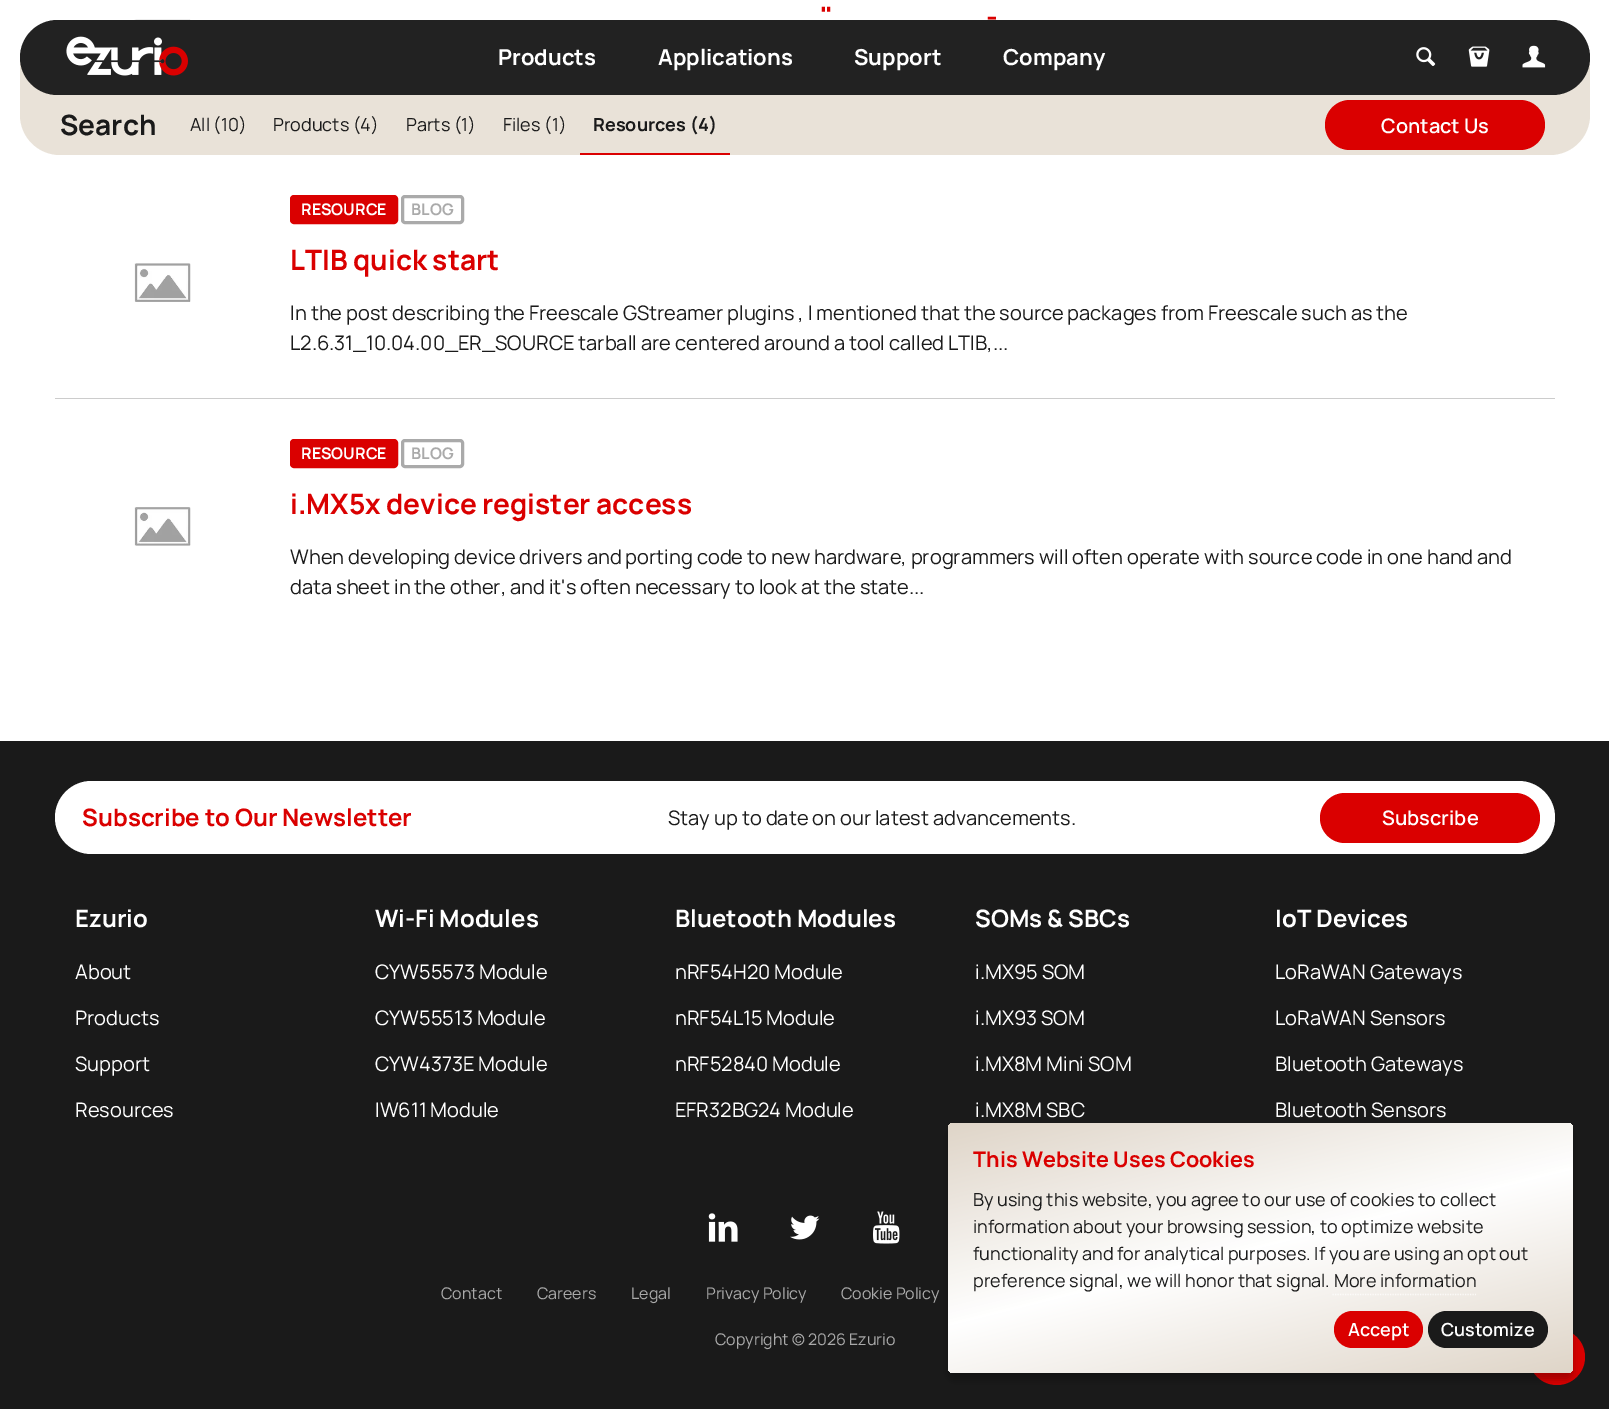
%!PS-Adobe-3.0
%%BoundingBox: 0 0 1609 1409
%%LanguageLevel: 3
%%Pages: 1
%%EndComments
%%BeginProlog
/setink { dup -16 bitshift 255 div exch dup -8 bitshift 255 and 255 div exch 255 and 255 div setrgbcolor } def
/usefont { [ exch dup neg 0 0 3 -1 roll 0 0 ] selectfont } def
/setalpha { dup .setfillconstantalpha .setstrokeconstantalpha } def
/disc { newpath 0 360 arc closepath } def
/rrect { 5 dict begin { /r /h /w /y /x } { exch def } forall
  x r add y moveto x w add y 2 copy h add r arct x w add y h add x 1 index r arct
  x y h add x y r arct x y 2 copy exch w add exch r arct closepath end } def
/softshadow { 12 dict begin { /a /b /q /h /w /y /x } { exch def } forall gsave /was 0 def
  9 -2 -9 { dup b mul 4 div /e exch def 1 sub .425 mul 2.718 exch exp 1 add a .99 .min exch div /now exch def
    1 1 now sub 1 was sub div sub setalpha /was now def
    w h .min e 2 mul add 0 gt { x e sub y e sub w e 2 mul add h e 2 mul add
      q e add b .6 mul add w h .min 2 div e add .min 0 .max rrect fill } if } for grestore end } def
/drawimage { 5 dict begin { /h /w /y /x /name } { exch def } forall
  gsave x y translate w h scale
  w h 8 [w 0 0 h 0 0] name (r) file false 3 colorimage grestore end } def
%%EndProlog
%%BeginSetup
<< /PageSize [1609 1409] /PageUsesTransparency true >> setpagedevice
%%EndSetup
%%Page: 1 1
0 .pushpdf14devicefilter
0 1409 translate 1 -1 scale
4 setmiterlimit
16#FFFFFF setink
0 0 1609 1409 rectfill
(img1.raw) 134 19 57 1 drawimage
/Manrope-Bold 28 usefont
16#DA0000 setink
820 27 moveto (") show
986 27 moveto (-) show
16#CCCCCC setink
55 398 1500 1 rectfill
(img2.raw) 134 263 57 39 drawimage
16#DA0000 setink
291.5 196.5 105 26 2.5 rrect gsave fill grestore
3 setlinewidth
stroke
/Manrope-Bold 16 usefont
16#FFFFFF setink
301 215 moveto (RESOURCE) show
16#AAAAAA setink
402.5 196.5 60 26 2.5 rrect stroke
411 215 moveto (BLOG) show
/Manrope-Bold 28 usefont
16#DA0000 setink
290 270 moveto (LTIB quick start) show
/Manrope-Regular 20 usefont
16#1A1A1A setink
290 320 moveto (In the post describing the Freescale GStreamer plugins , I mentioned that the source packages from Freescale such as the) show
290 350 moveto (L2.6.31_10.04.00_ER_SOURCE tarball are centered around a tool called LTIB,...) show
(img3.raw) 134 507 57 39 drawimage
16#DA0000 setink
291.5 440.5 105 26 2.5 rrect gsave fill grestore
stroke
/Manrope-Bold 16 usefont
16#FFFFFF setink
301 459 moveto (RESOURCE) show
16#AAAAAA setink
402.5 440.5 60 26 2.5 rrect stroke
411 459 moveto (BLOG) show
/Manrope-Bold 28 usefont
16#DA0000 setink
290 514 moveto (i.MX5x device register access) show
/Manrope-Regular 20 usefont
16#1A1A1A setink
290 564 moveto (When developing device drivers and porting code to new hardware, programmers will often operate with source code in one hand and) show
290 594 moveto (data sheet in the other, and it's often necessary to look at the state...) show
16#E9E2D8 setink
20 55 moveto 1590 55 lineto 1590 115 lineto 1590 137 1572 155 1550 155 curveto 60 155 lineto 38 155 20 137 20 115 curveto closepath fill
16#222222 setink
20 20 1570 75 37.5 rrect fill
(img4.raw) 66 36 122 40 drawimage
/Manrope-Bold 22 usefont
16#FFFFFF setink
[
    [(Products) 498 65]
    [(Applications) 658 65]
    [(Support) 854 65]
    [(Company) 1003 65]
] { aload pop moveto show } forall
(img5.raw) 1416 47 20 19 drawimage
(img6.raw) 1468 46 22 21 drawimage
(img7.raw) 1522 45 24 23 drawimage
/Manrope-Bold 28 usefont
16#1A1A1A setink
60 135 moveto (Search) show
/Manrope-Regular 18 usefont
[
    [(All \(10\)) 190 131]
    [(Products \(4\)) 273 131]
    [(Parts \(1\)) 406 131]
    [(Files \(1\)) 503 131]
] { aload pop moveto show } forall
16#DA0000 setink
580 153 150 2 rectfill
/Manrope-Bold 18 usefont
16#1A1A1A setink
593 131 moveto (Resources \(4\)) show
16#DA0000 setink
1325 100 220 50 25 rrect fill
/Manrope-SemiBold 20 usefont
16#FFFFFF setink
1381 133 moveto (Contact Us) show
16#1A1A1A setink
0 741 1609 668 rectfill
16#FFFFFF setink
55 781 1500 73 36.5 rrect fill
/Manrope-Bold 24 usefont
16#DA0000 setink
82 826 moveto (Subscribe to Our Newsletter) show
/Manrope-Regular 20 usefont
16#1A1A1A setink
668 825 moveto (Stay up to date on our latest advancements.) show
16#DA0000 setink
1320 793 220 50 25 rrect fill
/Manrope-SemiBold 20 usefont
16#FFFFFF setink
1382 825 moveto (Subscribe) show
/Manrope-Bold 24 usefont
75 927 moveto (Ezurio) show
/Manrope-Regular 20 usefont
[
    [(About) 75 979]
    [(Products) 75 1025]
    [(Support) 75 1071]
    [(Resources) 75 1117]
] { aload pop moveto show } forall
/Manrope-Bold 24 usefont
375 927 moveto (Wi-Fi Modules) show
/Manrope-Regular 20 usefont
[
    [(CYW55573 Module) 375 979]
    [(CYW55513 Module) 375 1025]
    [(CYW4373E Module) 375 1071]
    [(IW611 Module) 375 1117]
] { aload pop moveto show } forall
/Manrope-Bold 24 usefont
675 927 moveto (Bluetooth Modules) show
/Manrope-Regular 20 usefont
[
    [(nRF54H20 Module) 675 979]
    [(nRF54L15 Module) 675 1025]
    [(nRF52840 Module) 675 1071]
    [(EFR32BG24 Module) 675 1117]
] { aload pop moveto show } forall
/Manrope-Bold 24 usefont
975 927 moveto (SOMs & SBCs) show
/Manrope-Regular 20 usefont
[
    [(i.MX95 SOM) 975 979]
    [(i.MX93 SOM) 975 1025]
    [(i.MX8M Mini SOM) 975 1071]
    [(i.MX8M SBC) 975 1117]
] { aload pop moveto show } forall
/Manrope-Bold 24 usefont
1275 927 moveto (IoT Devices) show
/Manrope-Regular 20 usefont
[
    [(LoRaWAN Gateways) 1275 979]
    [(LoRaWAN Sensors) 1275 1025]
    [(Bluetooth Gateways) 1275 1071]
    [(Bluetooth Sensors) 1275 1117]
] { aload pop moveto show } forall
(img8.raw) 708 1213 30 29 drawimage
(img9.raw) 790 1215 30 25 drawimage
(img10.raw) 873 1211 27 33 drawimage
/Manrope-Regular 16 usefont
16#AAAAAA setink
[
    [(Contact) 441 1299]
    [(Careers) 537 1299]
    [(Legal) 631 1299]
    [(Privacy Policy) 706 1299]
    [(Cookie Policy) 841 1299]
    [(Copyright © 2026 Ezurio) 715 1345]
] { aload pop moveto show } forall
16#DA0000 setink
1557 1357 28 disc fill
16#000000 setink
948 1130 625 250 6 4 0.25 softshadow
gsave 948 1123 625 250 6 rrect clip newpath
<< /ShadingType 2 /ColorSpace /DeviceRGB /Coords [1308 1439 1212 1056] /Extend [true true] /Function << /FunctionType 3 /Domain [0 1] /Functions [<< /FunctionType 2 /Domain [0 1] /C0 [0.875 0.835 0.784] /C1 [1 1 1] /N 1 >> << /FunctionType 2 /Domain [0 1] /C0 [1 1 1] /C1 [0.875 0.835 0.784] /N 1 >>] /Bounds [0.5] /Encode [0 1 0 1] >> >> shfill grestore
/Manrope-Bold 21.6 usefont
16#DA0000 setink
973 1167 moveto (This Website Uses Cookies) show
/Manrope-Regular 18 usefont
16#1A1A1A setink
[
    [(By using this website, you agree to our use of cookies to collect) 973 1206]
    [(information about your browsing session, to optimize website) 973 1233]
    [(functionality and for analytical purposes. If you are using an opt out) 973 1260]
    [(preference signal, we will honor that signal. More information) 973 1287]
] { aload pop moveto show } forall
0.75 setalpha
16#FFFFFF setink
1.2 setlinewidth
[1.25 1.25] 0 setdash
1332.5 1294.5 moveto 1476 1294.5 lineto stroke
1 setalpha
16#DA0000 setink
1334 1311 89 37 18.5 rrect fill
/Manrope-SemiBold 18 usefont
16#FFFFFF setink
1348 1336 moveto (Accept) show
16#1A1A1A setink
1428 1311 120 37 18.5 rrect fill
16#FFFFFF setink
1441 1336 moveto (Customize) show
.poppdf14devicefilter showpage
%%EOF
